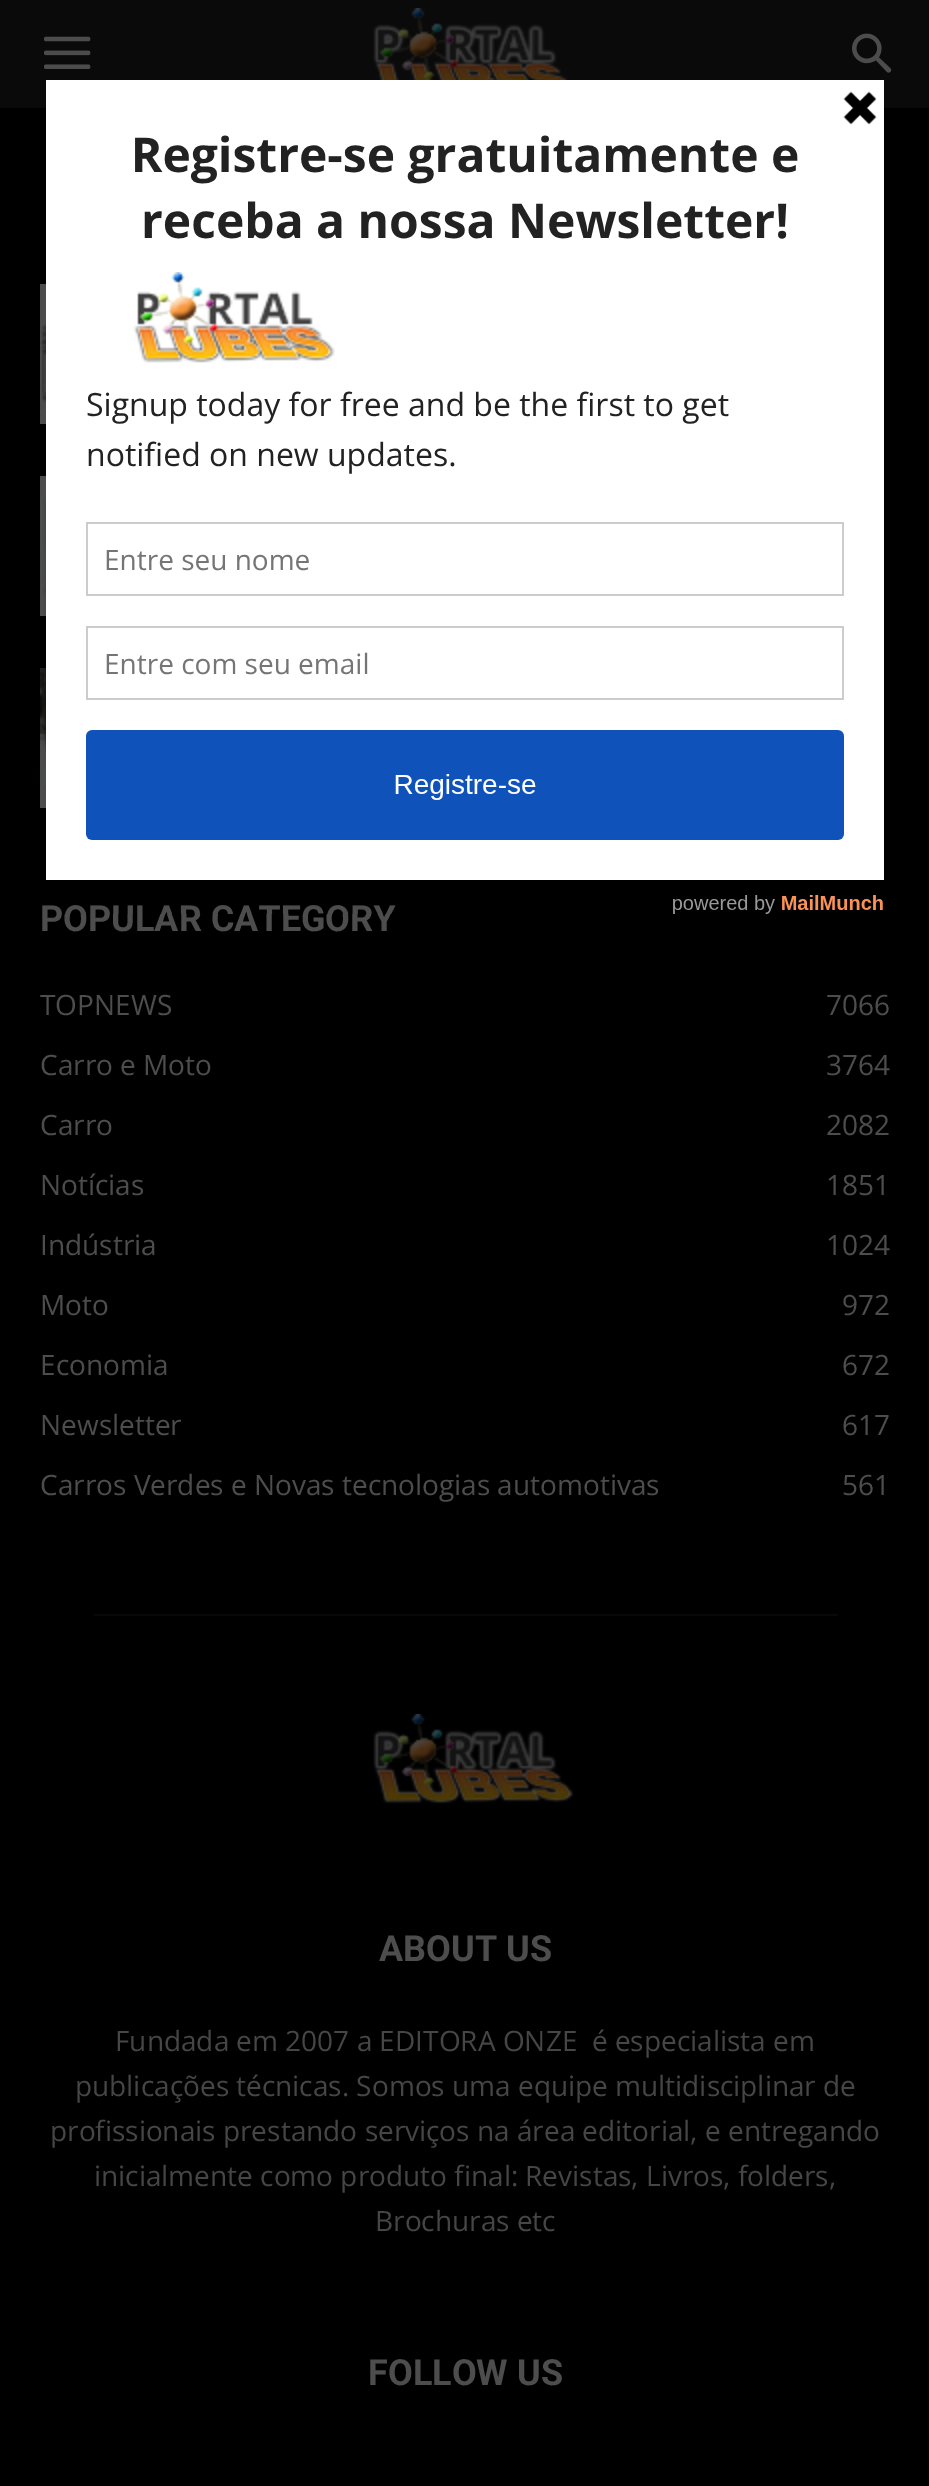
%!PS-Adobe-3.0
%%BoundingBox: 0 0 929 2486
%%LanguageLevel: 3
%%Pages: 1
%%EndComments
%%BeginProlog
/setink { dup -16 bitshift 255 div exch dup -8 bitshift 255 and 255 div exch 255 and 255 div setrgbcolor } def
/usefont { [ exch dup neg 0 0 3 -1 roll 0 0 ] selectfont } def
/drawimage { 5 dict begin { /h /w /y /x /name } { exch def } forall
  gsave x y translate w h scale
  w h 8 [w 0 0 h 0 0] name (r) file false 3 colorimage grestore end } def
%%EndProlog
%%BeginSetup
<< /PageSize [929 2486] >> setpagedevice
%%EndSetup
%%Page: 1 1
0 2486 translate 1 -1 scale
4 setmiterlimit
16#000000 setink
0 0 929 2486 rectfill
16#0A0A0A setink
0 0 929 108 rectfill
/Roboto-Bold 36 usefont
16#4D4D4D setink
40 931 moveto (POPULAR CATEGORY) show
(img1.raw) 46 80 838 834 drawimage
(img2.raw) 44 36 47 33 drawimage
(img3.raw) 373 8 198 72 drawimage
(img4.raw) 852 33 40 40 drawimage
(img5.raw) 40 284 6 140 drawimage
(img6.raw) 40 476 6 140 drawimage
(img7.raw) 40 668 6 140 drawimage
/OpenSans-Regular 28 usefont
[
    [(TOPNEWS) 40 1015]
    [(7066) 826 1015]
    [(Carro e Moto) 40 1075]
    [(3764) 826 1075]
    [(Carro) 40 1135]
    [(2082) 826 1135]
    [(Notícias) 40 1195]
    [(1851) 826 1195]
    [(Indústria) 40 1255]
    [(1024) 826 1255]
    [(Moto) 40 1315]
    [(972) 842 1315]
    [(Economia) 40 1375]
    [(672) 842 1375]
    [(Newsletter) 40 1435]
    [(617) 842 1435]
    [(Carros Verdes e Novas tecnologias automotivas) 40 1495]
    [(561) 842 1495]
] { aload pop moveto show } forall
16#080808 setink
94 1614 744 2 rectfill
(img8.raw) 373 1714 201 91 drawimage
/Roboto-Bold 36 usefont
16#4D4D4D setink
379 1961 moveto (ABOUT US) show
/OpenSans-Regular 28 usefont
16#464646 setink
[
    [(Fundada em 2007 a EDITORA ONZE  é especialista em) 115 2051]
    [(publicações técnicas. Somos uma equipe multidisciplinar de) 75 2096]
    [(profissionais prestando serviços na área editorial, e entregando) 50 2141]
    [(inicialmente como produto final: Revistas, Livros, folders,) 94 2186]
    [(Brochuras etc) 375 2231]
] { aload pop moveto show } forall
/Roboto-Bold 36 usefont
16#4D4D4D setink
368 2385 moveto (FOLLOW US) show
showpage
%%EOF
